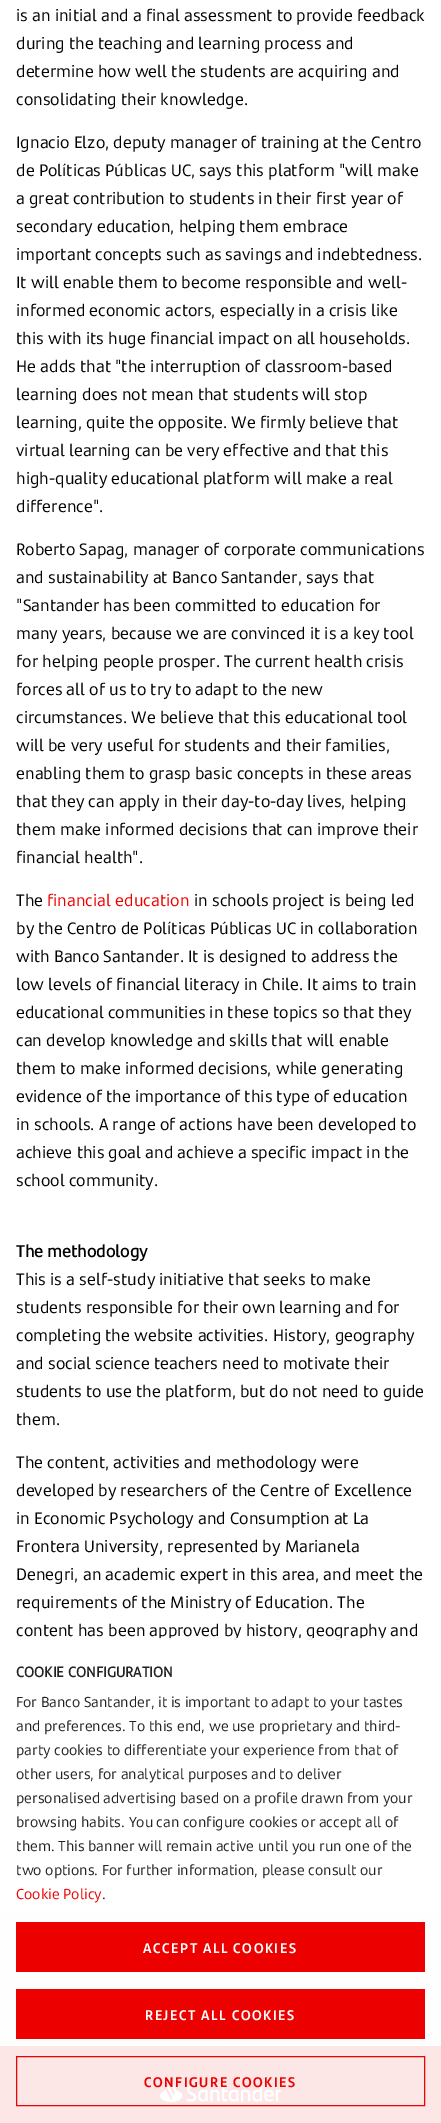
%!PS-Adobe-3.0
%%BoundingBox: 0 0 441 2123
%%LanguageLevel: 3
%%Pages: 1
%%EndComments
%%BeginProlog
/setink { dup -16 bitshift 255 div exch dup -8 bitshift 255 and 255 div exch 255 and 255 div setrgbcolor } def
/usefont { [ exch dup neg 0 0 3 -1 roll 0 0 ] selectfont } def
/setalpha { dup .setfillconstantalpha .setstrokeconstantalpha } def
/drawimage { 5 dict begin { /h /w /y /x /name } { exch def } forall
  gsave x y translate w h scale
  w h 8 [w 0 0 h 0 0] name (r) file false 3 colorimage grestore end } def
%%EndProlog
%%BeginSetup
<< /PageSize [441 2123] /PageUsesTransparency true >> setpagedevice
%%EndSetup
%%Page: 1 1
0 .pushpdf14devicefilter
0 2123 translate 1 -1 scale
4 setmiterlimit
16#FFFFFF setink
0 0 441 2123 rectfill
/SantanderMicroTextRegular-Regular 16 usefont
16#000000 setink
[
    [(is an initial and a final assessment to provide feedback) 16 21]
    [(during the teaching and learning process and) 16 49]
    [(determine how well the students are acquiring and) 16 77]
    [(consolidating their knowledge.) 16 105]
    [(Ignacio Elzo, deputy manager of training at the Centro) 16 148]
    [(de Políticas Públicas UC, says this platform "will make) 16 176]
    [(a great contribution to students in their first year of) 16 204]
    [(secondary education, helping them embrace) 16 232]
    [(important concepts such as savings and indebtedness.) 16 260]
    [(It will enable them to become responsible and well-) 16 288]
    [(informed economic actors, especially in a crisis like) 16 316]
    [(this with its huge financial impact on all households.) 16 344]
    [(He adds that "the interruption of classroom-based) 16 372]
    [(learning does not mean that students will stop) 16 400]
    [(learning, quite the opposite. We firmly believe that) 16 428]
    [(virtual learning can be very effective and that this) 16 456]
    [(high-quality educational platform will make a real) 16 484]
    [(difference".) 16 512]
    [(Roberto Sapag, manager of corporate communications) 16 555]
    [(and sustainability at Banco Santander, says that) 16 583]
    [("Santander has been committed to education for) 16 611]
    [(many years, because we are convinced it is a key tool) 16 639]
    [(for helping people prosper. The current health crisis) 16 667]
    [(forces all of us to try to adapt to the new) 16 695]
    [(circumstances. We believe that this educational tool) 16 723]
    [(will be very useful for students and their families,) 16 751]
    [(enabling them to grasp basic concepts in these areas) 16 779]
    [(that they can apply in their day-to-day lives, helping) 16 807]
    [(them make informed decisions that can improve their) 16 835]
    [(financial health".) 16 863]
    [(The) 16 906]
] { aload pop moveto show } forall
16#EC0000 setink
47 906 moveto (financial education) show
16#000000 setink
[
    [(in schools project is being led) 194 906]
    [(by the Centro de Políticas Públicas UC in collaboration) 16 934]
    [(with Banco Santander. It is designed to address the) 16 962]
    [(low levels of financial literacy in Chile. It aims to train) 16 990]
    [(educational communities in these topics so that they) 16 1018]
    [(can develop knowledge and skills that will enable) 16 1046]
    [(them to make informed decisions, while generating) 16 1074]
    [(evidence of the importance of this type of education) 16 1102]
    [(in schools. A range of actions have been developed to) 16 1130]
    [(achieve this goal and achieve a specific impact in the) 16 1158]
    [(school community.) 16 1186]
] { aload pop moveto show } forall
/SantanderMicroTextRegular-Bold 16 usefont
16 1257 moveto (The methodology) show
/SantanderMicroTextRegular-Regular 16 usefont
[
    [(This is a self-study initiative that seeks to make) 16 1285]
    [(students responsible for their own learning and for) 16 1313]
    [(completing the website activities. History, geography) 16 1341]
    [(and social science teachers need to motivate their) 16 1369]
    [(students to use the platform, but do not need to guide) 16 1397]
    [(them.) 16 1425]
    [(The content, activities and methodology were) 16 1468]
    [(developed by researchers of the Centre of Excellence) 16 1496]
    [(in Economic Psychology and Consumption at La) 16 1524]
    [(Frontera University, represented by Marianela) 16 1552]
    [(Denegri, an academic expert in this area, and meet the) 16 1580]
    [(requirements of the Ministry of Education. The) 16 1608]
    [(content has been approved by history, geography and) 16 1636]
] { aload pop moveto show } forall
[
    [0 1914 441 132 16#F7F7F7]
    [16 1979 205 1 16#EBEBEB]
    [16 2045 205 1 16#EBEBEB]
    [0 2046 441 77 16#EC0000]
] { aload pop setink rectfill } forall
(img1.raw) 160 2080 121 22 drawimage
0.9 setalpha
16#FFFFFF setink
0 1638 441 485 rectfill
/SantanderMicroTextRegular-Bold 14 usefont
1 setalpha
16#222222 setink
16 1677 moveto (COOKIE CONFIGURATION) show
/SantanderMicroTextRegular-Regular 14 usefont
[
    [(For Banco Santander, it is important to adapt to your tastes) 16 1707]
    [(and preferences. To this end, we use proprietary and third-) 16 1731]
    [(party cookies to differentiate your experience from that of) 16 1755]
    [(other users, for analytical purposes and to deliver) 16 1779]
    [(personalised advertising based on a profile drawn from your) 16 1803]
    [(browsing habits. You can configure cookies or accept all of) 16 1827]
    [(them. This banner will remain active until you run one of the) 16 1851]
    [(two options. For further information, please consult our) 16 1875]
] { aload pop moveto show } forall
16#EC0000 setink
16 1899 moveto (Cookie Policy) show
16#222222 setink
102 1899 moveto (.) show
16#EC0000 setink
16 1922 409 50 rectfill
/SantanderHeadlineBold-Bold 14 usefont
16#FFFFFF setink
143 1953 moveto 1.6 0 (ACCEPT ALL COOKIES) ashow
16#EC0000 setink
16 1989 409 50 rectfill
16#FFFFFF setink
145 2020 moveto 1.6 0 (REJECT ALL COOKIES) ashow
16#EC0000 setink
16.5 2056.5 408 49 rectstroke
144 2087 moveto 1.6 0 (CONFIGURE COOKIES) ashow
.poppdf14devicefilter showpage
%%EOF
